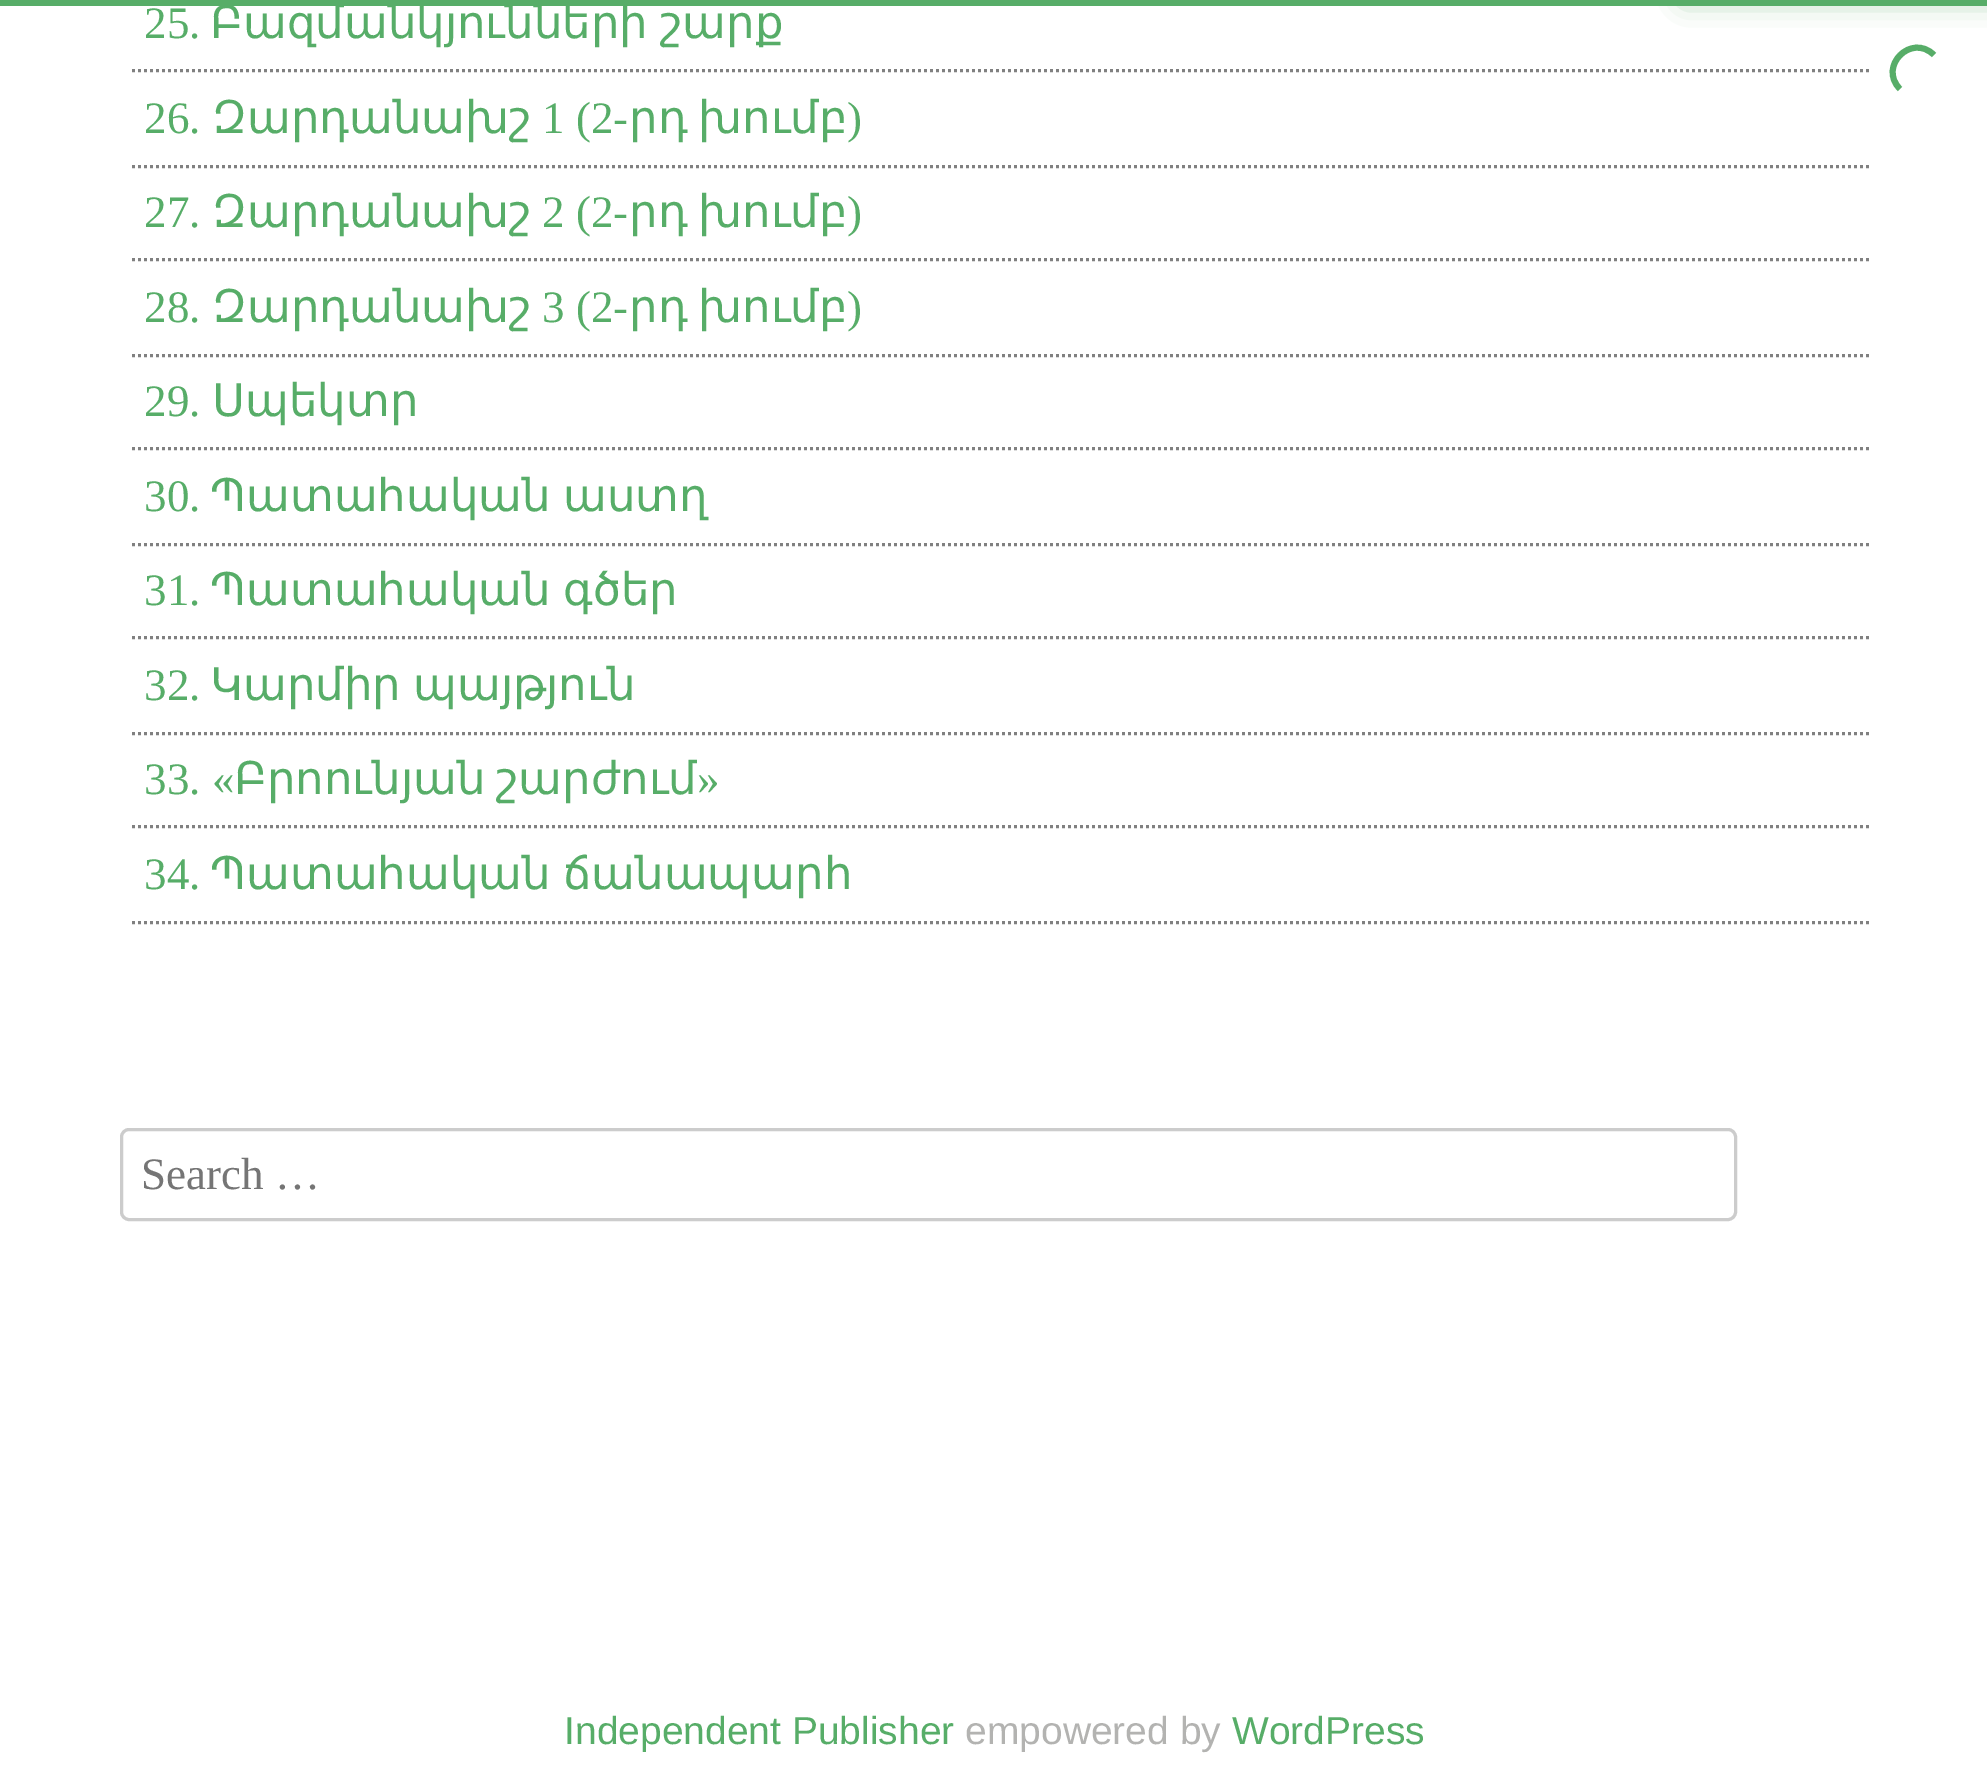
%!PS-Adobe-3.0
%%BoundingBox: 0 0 1987 1778
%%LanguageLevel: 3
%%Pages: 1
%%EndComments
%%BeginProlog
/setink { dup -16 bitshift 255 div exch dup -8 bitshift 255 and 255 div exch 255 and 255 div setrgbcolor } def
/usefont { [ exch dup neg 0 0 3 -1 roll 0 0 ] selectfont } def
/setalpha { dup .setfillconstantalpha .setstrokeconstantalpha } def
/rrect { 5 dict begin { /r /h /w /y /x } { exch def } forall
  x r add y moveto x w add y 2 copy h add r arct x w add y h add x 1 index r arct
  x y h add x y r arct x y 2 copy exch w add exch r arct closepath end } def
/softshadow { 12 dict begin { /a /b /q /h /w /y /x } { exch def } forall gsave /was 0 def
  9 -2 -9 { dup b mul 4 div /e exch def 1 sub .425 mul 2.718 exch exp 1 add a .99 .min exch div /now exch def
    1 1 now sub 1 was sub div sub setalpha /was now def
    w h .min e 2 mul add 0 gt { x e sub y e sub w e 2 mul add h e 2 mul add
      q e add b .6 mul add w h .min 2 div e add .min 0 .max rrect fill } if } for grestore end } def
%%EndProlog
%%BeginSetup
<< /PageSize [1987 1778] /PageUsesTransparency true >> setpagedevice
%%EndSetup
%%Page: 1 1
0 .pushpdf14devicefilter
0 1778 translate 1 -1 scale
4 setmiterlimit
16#FFFFFF setink
0 0 1987 1778 rectfill
16#57AD68 setink
0 0 1987 6 rectfill
gsave
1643 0 moveto 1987 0 lineto 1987 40 lineto 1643 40 lineto closepath 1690 -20 moveto 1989.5 -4 lineto 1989.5 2 lineto 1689.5 -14 lineto closepath eoclip newpath
1689 -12 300 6 0 15 1 softshadow
grestore
6 setlinewidth
1900 89 moveto 1877.5 66.5 1911.5 32.5 1934 55 curveto stroke
16#808080 setink
3 setlinewidth
[3 3] 0 setdash
132 70.5 moveto 1869 70.5 lineto stroke
/LiberationSerif-Regular 45 usefont
16#57AD68 setink
144 38 moveto (25.) show
/DejaVuSans-Regular 45 usefont
210 38 moveto -2 0 32 (Բազմանկյունների շարք) widthshow
16#808080 setink
132 166.5 moveto 1869 166.5 lineto stroke
/LiberationSerif-Regular 45 usefont
16#57AD68 setink
144 133 moveto (26.) show
/DejaVuSans-Regular 45 usefont
212 133 moveto (Զարդանախշ) show
/LiberationSerif-Regular 45 usefont
542 133 moveto (1 \(2-) show
/DejaVuSans-Regular 45 usefont
629 133 moveto (րդ) show
698 133 moveto (խումբ) show
/LiberationSerif-Regular 45 usefont
847 133 moveto (\)) show
16#808080 setink
132 259.5 moveto 1869 259.5 lineto stroke
16#57AD68 setink
144 227 moveto (27.) show
/DejaVuSans-Regular 45 usefont
212 227 moveto (Զարդանախշ) show
/LiberationSerif-Regular 45 usefont
542 227 moveto (2 \(2-) show
/DejaVuSans-Regular 45 usefont
629 227 moveto (րդ) show
698 227 moveto (խումբ) show
/LiberationSerif-Regular 45 usefont
847 227 moveto (\)) show
16#808080 setink
132 355.5 moveto 1869 355.5 lineto stroke
16#57AD68 setink
144 322 moveto (28.) show
/DejaVuSans-Regular 45 usefont
212 322 moveto (Զարդանախշ) show
/LiberationSerif-Regular 45 usefont
542 322 moveto (3 \(2-) show
/DejaVuSans-Regular 45 usefont
629 322 moveto (րդ) show
698 322 moveto (խումբ) show
/LiberationSerif-Regular 45 usefont
847 322 moveto (\)) show
16#808080 setink
132 448.5 moveto 1869 448.5 lineto stroke
16#57AD68 setink
144 416 moveto (29.) show
/DejaVuSans-Regular 45 usefont
212 416 moveto (Սպեկտր) show
16#808080 setink
132 544.5 moveto 1869 544.5 lineto stroke
/LiberationSerif-Regular 45 usefont
16#57AD68 setink
144 511 moveto (30.) show
/DejaVuSans-Regular 45 usefont
210 511 moveto -2 0 32 (Պատահական աստղ) widthshow
16#808080 setink
132 637.5 moveto 1869 637.5 lineto stroke
/LiberationSerif-Regular 45 usefont
16#57AD68 setink
144 605 moveto (31.) show
/DejaVuSans-Regular 45 usefont
210 605 moveto -2 0 32 (Պատահական գծեր) widthshow
16#808080 setink
132 733.5 moveto 1869 733.5 lineto stroke
/LiberationSerif-Regular 45 usefont
16#57AD68 setink
144 700 moveto (32.) show
/DejaVuSans-Regular 45 usefont
210 700 moveto -2 0 32 (Կարմիր պայթյուն) widthshow
16#808080 setink
132 826.5 moveto 1869 826.5 lineto stroke
/LiberationSerif-Regular 45 usefont
16#57AD68 setink
144 794 moveto (33. «) show
/DejaVuSans-Regular 45 usefont
234 794 moveto (Բրոունյան) show
496 794 moveto (շարժում) show
/LiberationSerif-Regular 45 usefont
697 794 moveto (») show
16#808080 setink
132 922.5 moveto 1869 922.5 lineto stroke
16#57AD68 setink
144 889 moveto (34.) show
/DejaVuSans-Regular 45 usefont
210 889 moveto -2 0 32 (Պատահական ճանապարհ) widthshow
16#CCCCCC setink
[] 0 setdash
121.5 1129.5 1614 90 7.5 rrect stroke
/LiberationSerif-Regular 45 usefont
16#757575 setink
141 1189 moveto (Search …) show
/LiberationSans-Regular 39 usefont
16#57AD68 setink
564 1744 moveto (Independent Publisher) show
16#B3B3B1 setink
965 1744 moveto (empowered by) show
16#57AD68 setink
1232 1744 moveto (WordPress) show
.poppdf14devicefilter showpage
%%EOF
